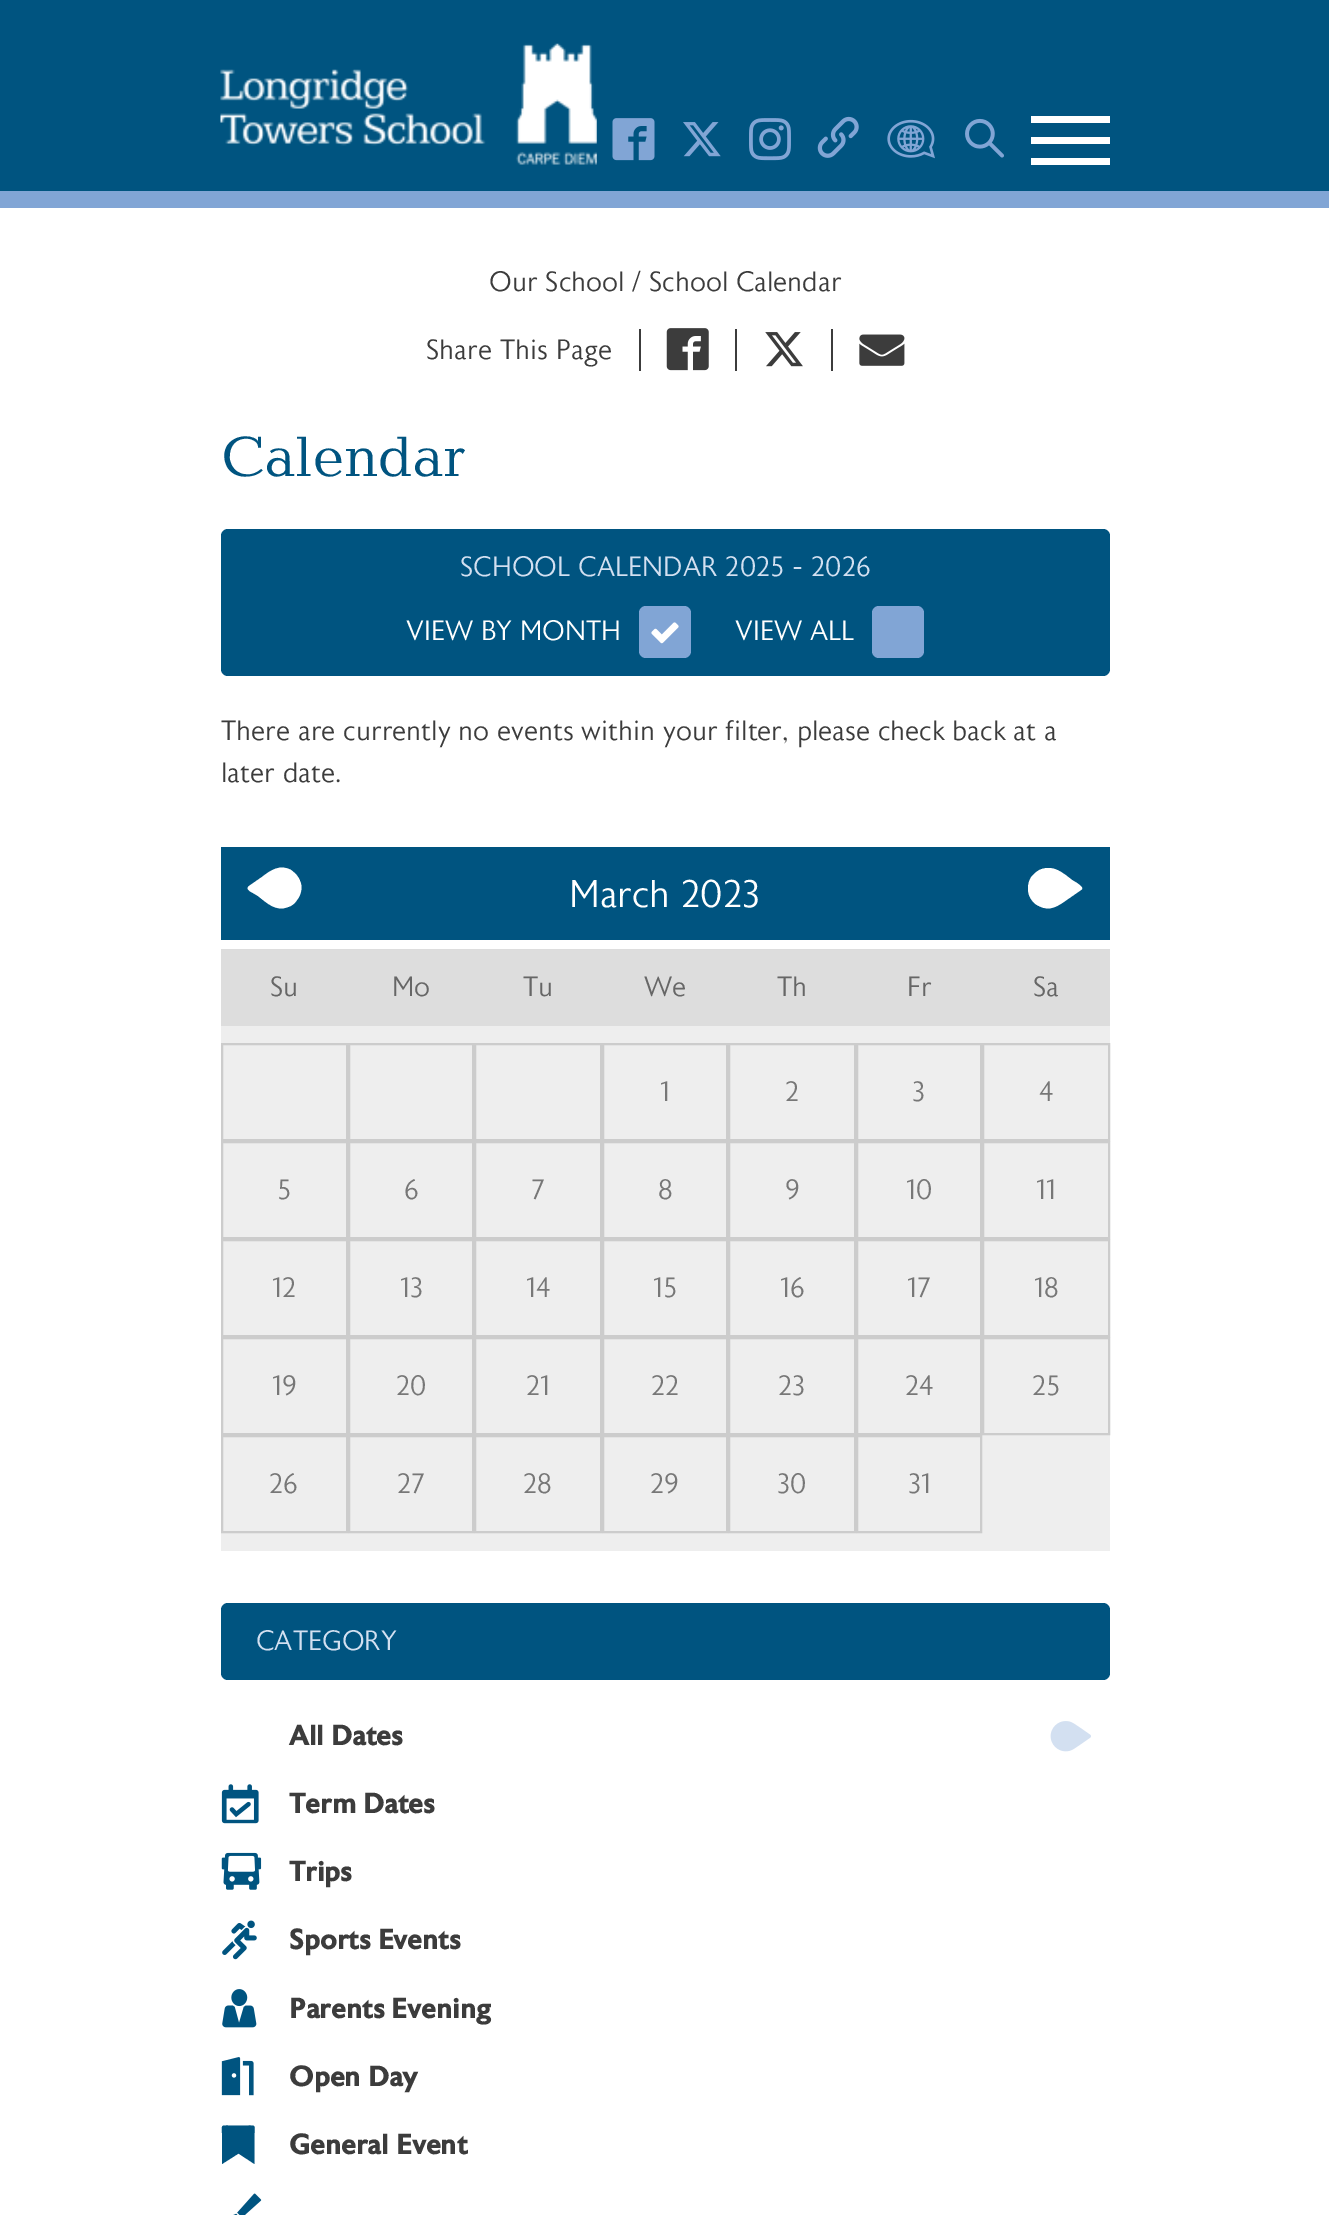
%!PS-Adobe-3.0
%%BoundingBox: 0 0 1329 2215
%%LanguageLevel: 3
%%Pages: 1
%%EndComments
%%BeginProlog
/setink { dup -16 bitshift 255 div exch dup -8 bitshift 255 and 255 div exch 255 and 255 div setrgbcolor } def
/usefont { [ exch dup neg 0 0 3 -1 roll 0 0 ] selectfont } def
/rrect { 5 dict begin { /r /h /w /y /x } { exch def } forall
  x r add y moveto x w add y 2 copy h add r arct x w add y h add x 1 index r arct
  x y h add x y r arct x y 2 copy exch w add exch r arct closepath end } def
/drawimage { 5 dict begin { /h /w /y /x /name } { exch def } forall
  gsave x y translate w h scale
  w h 8 [w 0 0 h 0 0] name (r) file false 3 colorimage grestore end } def
%%EndProlog
%%BeginSetup
<< /PageSize [1329 2215] >> setpagedevice
%%EndSetup
%%Page: 1 1
0 2215 translate 1 -1 scale
4 setmiterlimit
16#FFFFFF setink
0 0 1329 2215 rectfill
16#005480 setink
0 0 1329 191 rectfill
16#81A5D5 setink
0 191 1329 17 rectfill
(img1.raw) 220 43 377 122 drawimage
(img2.raw) 612 118 43 43 drawimage
(img3.raw) 683 122 38 35 drawimage
(img4.raw) 749 118 42 43 drawimage
(img5.raw) 817 116 42 42 drawimage
(img6.raw) 887 119 48 40 drawimage
(img7.raw) 965 118 39 40 drawimage
[
    [1031 116 79 7 16#FFFFFF]
    [1031 137 79 7 16#FFFFFF]
    [1031 158 79 7 16#FFFFFF]
] { aload pop setink rectfill } forall
/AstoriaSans-Light 28 usefont
16#3C3C3C setink
489 291 moveto (Our School / School Calendar) show
426 359 moveto (Share This Page) show
639 329 2 42 rectfill
(img8.raw) 666 328 43 43 drawimage
735 329 2 42 rectfill
(img9.raw) 765 332 38 35 drawimage
831 329 2 42 rectfill
(img10.raw) 859 334 46 32 drawimage
/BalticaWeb-Regular 58.5 usefont
16#005480 setink
221 476 moveto (Calendar) show
221 529 889 147 7 rrect fill
/AstoriaSans-Light 28 usefont
16#D3E0F1 setink
460 576 moveto (SCHOOL CALENDAR 2025 - 2026) show
16#FFFFFF setink
406 640 moveto (VIEW BY MONTH) show
16#81A5D5 setink
639 606 52 52 7 rrect fill
(img11.raw) 651 622 28 22 drawimage
16#FFFFFF setink
735 640 moveto (VIEW ALL) show
16#81A5D5 setink
872 606 52 52 7 rrect fill
16#3C3C3C setink
221 740 moveto (There are currently no events within your filter, please check back at a) show
221 782 moveto (later date.) show
16#005480 setink
221 847 889 93 rectfill
16#FFFFFF setink
249 886 moveto 262 877 lineto 271 870 280 864 291 870 curveto 295 873 299 877 300 881 curveto 303 887 301 895 297 900 curveto 295 903 292 906 288 907 curveto 276 912 267 903 258 896 curveto 253 893 lineto 251 892 245 889 249 886 curveto closepath fill
/AstoriaSans-Light 38.5 usefont
569 907 moveto (March 2023) show
1081 890 moveto 1068 899 lineto 1058 906 1050 912 1039 906 curveto 1034 904 1031 900 1029 895 curveto 1027 889 1028 881 1032 876 curveto 1035 873 1038 870 1042 869 curveto 1054 865 1063 873 1072 880 curveto 1077 883 lineto 1078 884 1085 888 1081 890 curveto closepath fill
16#DDDDDD setink
221 949 889 77 rectfill
/AstoriaSans-Light 28 usefont
16#666666 setink
[
    [(Su) 270 996]
    [(Mo) 392 996]
    [(Tu) 523 996]
    [(We) 644 996]
    [(Th) 777 996]
    [(Fr) 907 996]
    [(Sa) 1033 996]
] { aload pop moveto show } forall
16#EEEEEE setink
221 1026 889 525 rectfill
16#CCCCCC setink
2 setlinewidth
222 1044 125 96 rectstroke
349 1044 124 96 rectstroke
475 1044 126 96 rectstroke
603 1044 124 96 rectstroke
16#777777 setink
660 1101 moveto (1) show
16#CCCCCC setink
729 1044 126 96 rectstroke
16#777777 setink
785 1101 moveto (2) show
16#CCCCCC setink
857 1044 124 96 rectstroke
16#777777 setink
912 1101 moveto (3) show
16#CCCCCC setink
983 1044 126 96 rectstroke
16#777777 setink
1039 1101 moveto (4) show
16#CCCCCC setink
222 1142 125 96 rectstroke
16#777777 setink
277 1199 moveto (5) show
16#CCCCCC setink
349 1142 124 96 rectstroke
16#777777 setink
404 1199 moveto (6) show
16#CCCCCC setink
475 1142 126 96 rectstroke
16#777777 setink
531 1199 moveto (7) show
16#CCCCCC setink
603 1142 124 96 rectstroke
16#777777 setink
658 1199 moveto (8) show
16#CCCCCC setink
729 1142 126 96 rectstroke
16#777777 setink
785 1199 moveto (9) show
16#CCCCCC setink
857 1142 124 96 rectstroke
16#777777 setink
906 1199 moveto (10) show
16#CCCCCC setink
983 1142 126 96 rectstroke
16#777777 setink
1036 1199 moveto (11) show
16#CCCCCC setink
222 1240 125 96 rectstroke
16#777777 setink
272 1297 moveto (12) show
16#CCCCCC setink
349 1240 124 96 rectstroke
16#777777 setink
400 1297 moveto (13) show
16#CCCCCC setink
475 1240 126 96 rectstroke
16#777777 setink
526 1297 moveto (14) show
16#CCCCCC setink
603 1240 124 96 rectstroke
16#777777 setink
653 1297 moveto (15) show
16#CCCCCC setink
729 1240 126 96 rectstroke
16#777777 setink
780 1297 moveto (16) show
16#CCCCCC setink
857 1240 124 96 rectstroke
16#777777 setink
907 1297 moveto (17) show
16#CCCCCC setink
983 1240 126 96 rectstroke
16#777777 setink
1034 1297 moveto (18) show
16#CCCCCC setink
222 1338 125 96 rectstroke
16#777777 setink
272 1395 moveto (19) show
16#CCCCCC setink
349 1338 124 96 rectstroke
16#777777 setink
396 1395 moveto (20) show
16#CCCCCC setink
475 1338 126 96 rectstroke
16#777777 setink
526 1395 moveto (21) show
16#CCCCCC setink
603 1338 124 96 rectstroke
16#777777 setink
651 1395 moveto (22) show
16#CCCCCC setink
729 1338 126 96 rectstroke
16#777777 setink
778 1395 moveto (23) show
16#CCCCCC setink
857 1338 124 96 rectstroke
16#777777 setink
905 1395 moveto (24) show
16#CCCCCC setink
983 1338 126 96 rectstroke
16#777777 setink
1032 1395 moveto (25) show
16#CCCCCC setink
222 1436 125 96 rectstroke
16#777777 setink
269 1493 moveto (26) show
16#CCCCCC setink
349 1436 124 96 rectstroke
16#777777 setink
397 1493 moveto (27) show
16#CCCCCC setink
475 1436 126 96 rectstroke
16#777777 setink
523 1493 moveto (28) show
16#CCCCCC setink
603 1436 124 96 rectstroke
16#777777 setink
650 1493 moveto (29) show
16#CCCCCC setink
729 1436 126 96 rectstroke
16#777777 setink
777 1493 moveto (30) show
16#CCCCCC setink
857 1436 124 96 rectstroke
16#777777 setink
908 1493 moveto (31) show
16#005480 setink
221 1603 889 77 7 rrect fill
16#D3E0F1 setink
256 1650 moveto (CATEGORY) show
/AstoriaSans-Bold 28 usefont
16#3C3C3C setink
289 1745 moveto (All Dates) show
(img12.raw) 1050 1721 41 31 drawimage
(img13.raw) 221 1784 38 40 drawimage
289 1813 moveto (Term Dates) show
(img14.raw) 221 1852 41 38 drawimage
289 1881 moveto (Trips) show
(img15.raw) 222 1920 35 40 drawimage
289 1949 moveto (Sports Events) show
(img16.raw) 222 1989 35 39 drawimage
289 2018 moveto (Parents Evening) show
(img17.raw) 221 2057 33 39 drawimage
289 2086 moveto (Open Day) show
16#005480 setink
254.5 2164 moveto 238.5 2153.5 lineto 222 2164 lineto 222 2133.5 lineto 222 2125 220.5 2125.5 228.5 2125.5 curveto 248 2125.5 lineto 256 2125.5 254.5 2125 254.5 2133.5 curveto closepath fill
16#3C3C3C setink
289 2154 moveto (General Event) show
(img18.raw) 233 2193 29 22 drawimage
showpage
%%EOF
